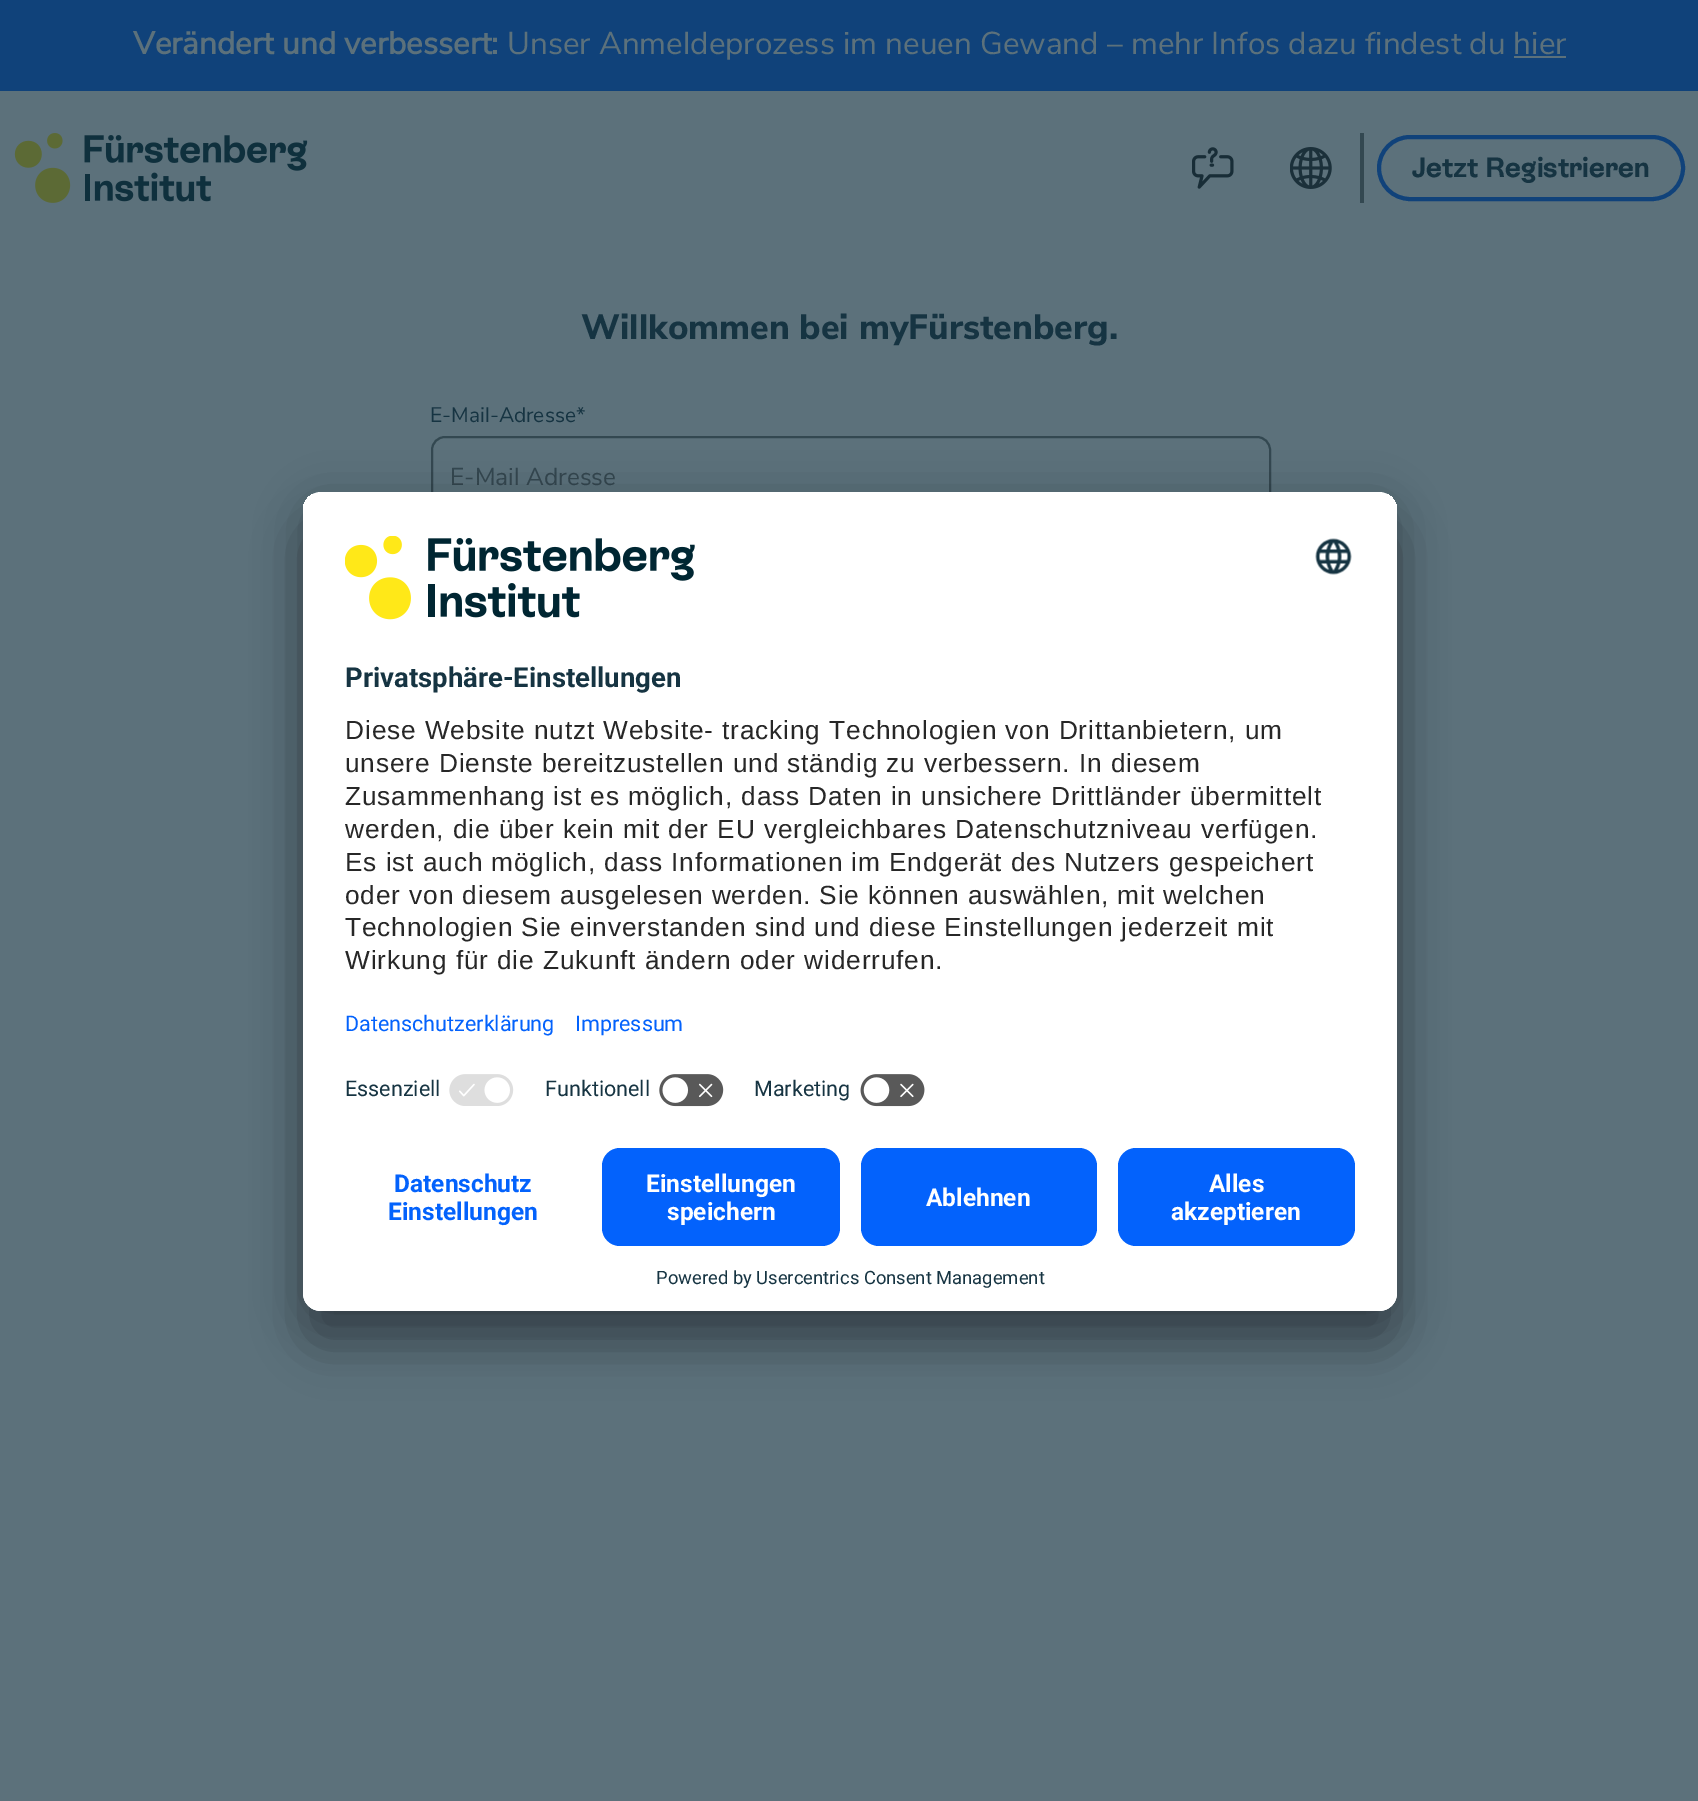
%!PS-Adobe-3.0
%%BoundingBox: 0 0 1698 1801
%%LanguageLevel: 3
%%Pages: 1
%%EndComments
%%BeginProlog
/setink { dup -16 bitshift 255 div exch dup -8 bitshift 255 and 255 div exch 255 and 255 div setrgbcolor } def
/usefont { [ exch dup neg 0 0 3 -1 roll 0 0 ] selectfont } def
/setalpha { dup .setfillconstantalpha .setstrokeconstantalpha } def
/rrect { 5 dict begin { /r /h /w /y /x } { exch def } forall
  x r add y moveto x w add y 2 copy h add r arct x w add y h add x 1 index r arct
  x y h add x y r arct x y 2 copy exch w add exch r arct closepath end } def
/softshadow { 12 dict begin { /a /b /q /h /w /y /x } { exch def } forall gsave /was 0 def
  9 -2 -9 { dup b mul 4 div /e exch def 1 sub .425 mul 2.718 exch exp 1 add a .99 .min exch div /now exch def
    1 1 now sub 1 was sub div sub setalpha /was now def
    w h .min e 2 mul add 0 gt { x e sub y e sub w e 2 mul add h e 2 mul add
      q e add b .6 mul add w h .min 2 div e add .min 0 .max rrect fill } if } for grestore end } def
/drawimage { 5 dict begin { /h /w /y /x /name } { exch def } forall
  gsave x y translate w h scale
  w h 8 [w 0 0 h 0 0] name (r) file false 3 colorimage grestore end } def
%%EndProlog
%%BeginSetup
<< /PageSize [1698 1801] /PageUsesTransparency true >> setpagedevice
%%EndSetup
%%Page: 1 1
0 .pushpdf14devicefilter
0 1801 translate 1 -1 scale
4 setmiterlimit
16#5C717B setink
0 0 1698 1801 rectfill
16#10427A setink
0 0 1698 91 rectfill
/NunitoSans-Bold 31.5 usefont
16#5C717B setink
133 54 moveto (Verändert und verbessert:) show
/NunitoSans-Regular 31.5 usefont
507 54 moveto (Unser Anmeldeprozess im neuen Gewand – mehr Infos dazu findest du hier) show
1514 56 52 2 rectfill
(img1.raw) 14 133 294 70 drawimage
(img2.raw) 1192 147 42 42 drawimage
(img3.raw) 1290 147 42 42 drawimage
16#334851 setink
1360 133 4 70 rectfill
16#10427A setink
4 setlinewidth
1379 137 304 62 31 rrect stroke
/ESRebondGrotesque-Bold 28 usefont
16#163442 setink
1412 177 moveto (Jetzt Registrieren) show
/NunitoSans-ExtraBold 35 usefont
581 339 moveto (Willkommen bei myFürstenberg.) show
/NunitoSans-Regular 21 usefont
430 422 moveto (E-Mail-Adresse*) show
16#334851 setink
2 setlinewidth
432 437 838 82 13 rrect stroke
/NunitoSans-Regular 24.5 usefont
450 485 moveto (E-Mail Adresse) show
16#000000 setink
303 527 1094 819 18 24.5 0.3 softshadow
303 501 1094 819 18 23 0.22 softshadow
16#FFFFFF setink
303 492 1094 819 18 rrect fill
gsave
303 492 1094 819 18 rrect clip newpath
321 492 moveto 1379 492 lineto 1389 492 1397 500 1397 510 curveto 1397 1134 lineto 303 1134 lineto 303 510 lineto 303 500 311 492 321 492 curveto closepath clip newpath
303 494 1094 640 rectfill
303 494 1094 570 rectfill
grestore
(img4.raw) 345 536 350 84 drawimage
(img5.raw) 1315 538 37 37 drawimage
/Roboto-Bold 27.5 usefont
16#163442 setink
345 687 moveto (Privatsphäre-Einstellungen) show
/LiberationSans-Regular 26.25 usefont
16#272727 setink
345 739 moveto 0.88 0 (Diese Website nutzt Website- tracking Technologien von Drittanbietern, um) ashow
345 772 moveto 0.88 0 (unsere Dienste bereitzustellen und ständig zu verbessern. In diesem) ashow
345 805 moveto 0.88 0 (Zusammenhang ist es möglich, dass Daten in unsichere Drittländer übermittelt) ashow
345 838 moveto 0.88 0 (werden, die über kein mit der EU vergleichbares Datenschutzniveau verfügen.) ashow
345 871 moveto 0.88 0 (Es ist auch möglich, dass Informationen im Endgerät des Nutzers gespeichert) ashow
345 904 moveto 0.88 0 (oder von diesem ausgelesen werden. Sie können auswählen, mit welchen) ashow
345 936 moveto 0.88 0 (Technologien Sie einverstanden sind und diese Einstellungen jederzeit mit) ashow
345 969 moveto 0.88 0 (Wirkung für die Zukunft ändern oder widerrufen.) ashow
/Roboto-Regular 21.5 usefont
16#0362FC setink
345 1031 moveto (Datenschutzerklärung) show
575 1031 moveto (Impressum) show
16#163442 setink
345 1096 moveto (Essenziell) show
(img6.raw) 449 1074 65 32 drawimage
545 1096 moveto (Funktionell) show
(img7.raw) 659 1074 65 33 drawimage
754 1096 moveto (Marketing) show
(img8.raw) 860 1074 65 33 drawimage
16#FFFFFF setink
303 1134 moveto 1397 1134 lineto 1397 1293 lineto 1397 1303 1389 1311 1379 1311 curveto 321 1311 lineto 311 1311 303 1303 303 1293 curveto closepath fill
/Roboto-Bold 24.5 usefont
16#0362FC setink
394 1192 moveto (Datenschutz) show
388 1220 moveto (Einstellungen) show
602 1148 238 98 18 rrect fill
16#FFFFFF setink
646 1192 moveto (Einstellungen) show
667 1220 moveto (speichern) show
16#0362FC setink
861 1148 236 98 18 rrect fill
16#FFFFFF setink
926 1206 moveto (Ablehnen) show
16#0362FC setink
1118 1148 237 98 18 rrect fill
16#FFFFFF setink
1209 1192 moveto (Alles) show
1171 1220 moveto (akzeptieren) show
/Roboto-Regular 18.4 usefont
16#163442 setink
656 1284 moveto (Powered by Usercentrics Consent Management) show
.poppdf14devicefilter showpage
%%EOF
